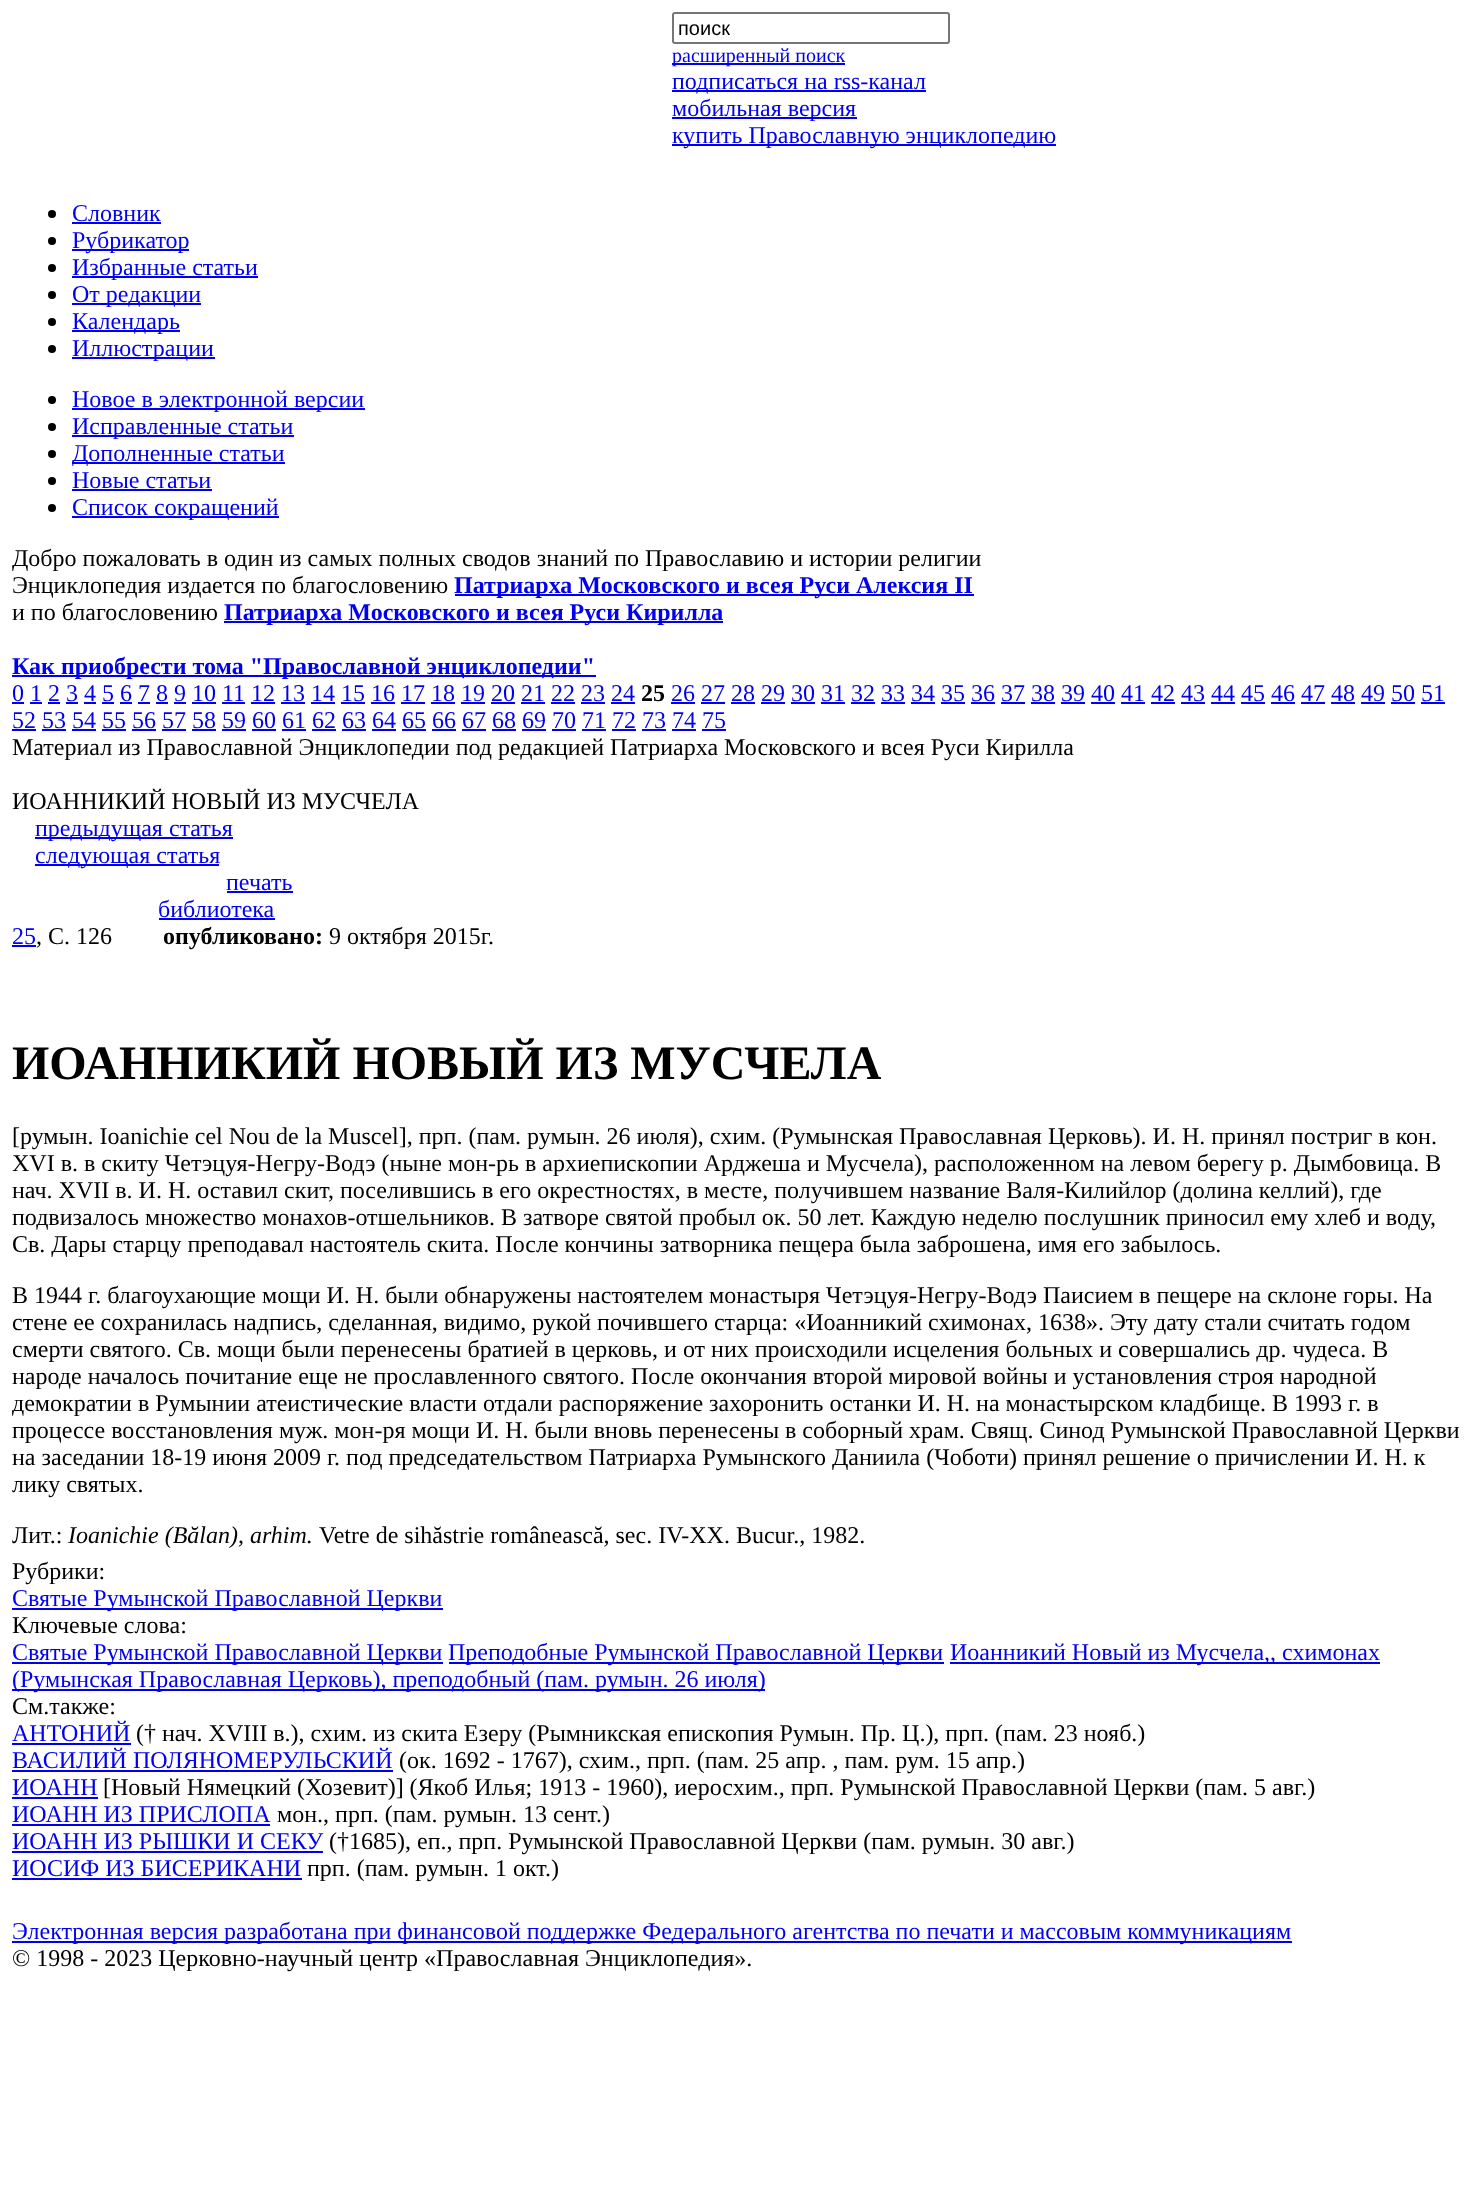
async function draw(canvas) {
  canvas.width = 1474
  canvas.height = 2188
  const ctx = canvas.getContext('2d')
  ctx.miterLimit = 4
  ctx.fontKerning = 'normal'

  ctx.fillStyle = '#fff'
  ctx.fillRect(0, 0, 1474, 2188)
  ctx.beginPath()
  ctx.roundRect(673, 13, 276, 30, 2)
  ctx.strokeStyle = '#767676'
  ctx.lineWidth = 2
  ctx.stroke()
  ctx.font = '20px Liberation Sans'
  ctx.fillStyle = '#000'
  ctx.fillText('поиск', 678, 35)
  ctx.fillStyle = '#00e'
  ctx.fillRect(672, 63, 173, 2)
  ctx.font = '20px Liberation Serif'
  ctx.fillText('расширенный поиск', 672, 62)
  ctx.fillRect(672, 90, 254, 2)
  ctx.font = '24px Liberation Serif'
  ctx.fillText('подписаться на rss-канал', 672, 89)
  ctx.fillRect(672, 117, 185, 2)
  ctx.fillText('мобильная версия', 672, 116)
  ctx.fillRect(672, 144, 384, 2)
  ctx.fillText('купить Православную энциклопедию', 672, 143)
  ctx.fillStyle = '#000'
  ctx.beginPath()
  ctx.arc(52, 214, 4, 0, 2 * Math.PI)
  ctx.fill()
  ctx.fillStyle = '#00e'
  ctx.fillText('Словник', 72, 221)
  ctx.fillRect(72, 222, 89, 2)
  ctx.fillStyle = '#000'
  ctx.beginPath()
  ctx.arc(52, 241, 4, 0, 2 * Math.PI)
  ctx.fill()
  ctx.fillStyle = '#00e'
  ctx.fillRect(72, 249, 117, 2)
  ctx.fillText('Рубрикатор', 72, 248)
  ctx.fillStyle = '#000'
  ctx.beginPath()
  ctx.arc(52, 268, 4, 0, 2 * Math.PI)
  ctx.fill()
  ctx.fillStyle = '#00e'
  ctx.fillRect(72, 276, 186, 2)
  ctx.fillText('Избранные статьи', 72, 275)
  ctx.fillStyle = '#000'
  ctx.beginPath()
  ctx.arc(52, 295, 4, 0, 2 * Math.PI)
  ctx.fill()
  ctx.fillStyle = '#00e'
  ctx.fillRect(72, 303, 129, 2)
  ctx.fillText('От редакции', 72, 302)
  ctx.fillStyle = '#000'
  ctx.beginPath()
  ctx.arc(52, 322, 4, 0, 2 * Math.PI)
  ctx.fill()
  ctx.fillStyle = '#00e'
  ctx.fillRect(72, 330, 108, 2)
  ctx.fillText('Календарь', 72, 329)
  ctx.fillStyle = '#000'
  ctx.beginPath()
  ctx.arc(52, 349, 4, 0, 2 * Math.PI)
  ctx.fill()
  ctx.fillStyle = '#00e'
  ctx.fillRect(72, 357, 143, 2)
  ctx.fillText('Иллюстрации', 72, 356)
  ctx.fillStyle = '#000'
  ctx.beginPath()
  ctx.arc(52, 400, 4, 0, 2 * Math.PI)
  ctx.fill()
  ctx.fillStyle = '#00e'
  ctx.fillRect(72, 408, 293, 2)
  ctx.fillText('Новое в электронной версии', 72, 407)
  ctx.fillStyle = '#000'
  ctx.beginPath()
  ctx.arc(52, 427, 4, 0, 2 * Math.PI)
  ctx.fill()
  ctx.fillStyle = '#00e'
  ctx.fillRect(72, 435, 222, 2)
  ctx.fillText('Исправленные статьи', 72, 434)
  ctx.fillStyle = '#000'
  ctx.beginPath()
  ctx.arc(52, 454, 4, 0, 2 * Math.PI)
  ctx.fill()
  ctx.fillStyle = '#00e'
  ctx.fillRect(72, 462, 213, 2)
  ctx.fillText('Дополненные статьи', 72, 461)
  ctx.fillStyle = '#000'
  ctx.beginPath()
  ctx.arc(52, 481, 4, 0, 2 * Math.PI)
  ctx.fill()
  ctx.fillStyle = '#00e'
  ctx.fillText('Новые статьи', 72, 488)
  ctx.fillRect(72, 489, 140, 2)
  ctx.fillStyle = '#000'
  ctx.beginPath()
  ctx.arc(52, 508, 4, 0, 2 * Math.PI)
  ctx.fill()
  ctx.fillStyle = '#00e'
  ctx.fillRect(72, 516, 207, 2)
  ctx.fillText('Список сокращений', 72, 515)
  ctx.fillStyle = '#000'
  ctx.fillText('Добро пожаловать в один из самых полных сводов знаний по Православию и истории религии', 12, 566)
  ctx.fillText('Энциклопедия издается по благословению', 12, 593)
  ctx.fillStyle = '#00e'
  ctx.fillRect(455, 594, 519, 2)
  ctx.font = 'bold 24px Liberation Serif'
  ctx.fillText('Патриарха Московского и всея Руси Алексия II', 454, 593)
  ctx.font = '24px Liberation Serif'
  ctx.fillStyle = '#000'
  ctx.fillText('и по благословению', 12, 620)
  ctx.fillStyle = '#00e'
  ctx.fillRect(224, 621, 499, 2)
  ctx.font = 'bold 24px Liberation Serif'
  ctx.fillText('Патриарха Московского и всея Руси Кирилла', 224, 620)
  ctx.fillRect(12, 675, 584, 2)
  ctx.fillText('Как приобрести тома "Православной энциклопедии"', 12, 674)
  ctx.font = '24px Liberation Serif'
  ctx.fillText('0 1 2 3 4 5 6 7 8 9 10 11 12 13 14 15 16 17 18 19 20 21 22 23 24', 12, 701)
  ctx.fillRect(12, 702, 12, 2)
  ctx.font = 'bold 24px Liberation Serif'
  ctx.fillStyle = '#000'
  ctx.fillText('25', 641, 701)
  ctx.font = '24px Liberation Serif'
  ctx.fillStyle = '#00e'
  ctx.fillText('26 27 28 29 30 31 32 33 34 35 36 37 38 39 40 41 42 43 44 45 46 47 48 49 50 51', 671, 701)
  ctx.fillRect(671, 702, 24, 2)
  ctx.fillRect(30, 702, 12, 2)
  ctx.fillRect(48, 702, 12, 2)
  ctx.fillRect(66, 702, 12, 2)
  ctx.fillRect(84, 702, 12, 2)
  ctx.fillRect(102, 702, 12, 2)
  ctx.fillRect(120, 702, 12, 2)
  ctx.fillRect(138, 702, 12, 2)
  ctx.fillRect(156, 702, 12, 2)
  ctx.fillRect(174, 702, 12, 2)
  ctx.fillRect(192, 702, 24, 2)
  ctx.fillRect(222, 702, 23, 2)
  ctx.fillRect(251, 702, 24, 2)
  ctx.fillRect(281, 702, 24, 2)
  ctx.fillRect(311, 702, 24, 2)
  ctx.fillRect(341, 702, 24, 2)
  ctx.fillRect(371, 702, 24, 2)
  ctx.fillRect(401, 702, 24, 2)
  ctx.fillRect(431, 702, 24, 2)
  ctx.fillRect(461, 702, 24, 2)
  ctx.fillRect(491, 702, 24, 2)
  ctx.fillRect(521, 702, 24, 2)
  ctx.fillRect(551, 702, 24, 2)
  ctx.fillRect(581, 702, 24, 2)
  ctx.fillRect(611, 702, 24, 2)
  ctx.fillRect(701, 702, 24, 2)
  ctx.fillRect(731, 702, 24, 2)
  ctx.fillRect(761, 702, 24, 2)
  ctx.fillRect(791, 702, 24, 2)
  ctx.fillRect(821, 702, 24, 2)
  ctx.fillRect(851, 702, 24, 2)
  ctx.fillRect(881, 702, 24, 2)
  ctx.fillRect(911, 702, 24, 2)
  ctx.fillRect(941, 702, 24, 2)
  ctx.fillRect(971, 702, 24, 2)
  ctx.fillRect(1001, 702, 24, 2)
  ctx.fillRect(1031, 702, 24, 2)
  ctx.fillRect(1061, 702, 24, 2)
  ctx.fillRect(1091, 702, 24, 2)
  ctx.fillRect(1121, 702, 24, 2)
  ctx.fillRect(1151, 702, 24, 2)
  ctx.fillRect(1181, 702, 24, 2)
  ctx.fillRect(1211, 702, 24, 2)
  ctx.fillRect(1241, 702, 24, 2)
  ctx.fillRect(1271, 702, 24, 2)
  ctx.fillRect(1301, 702, 24, 2)
  ctx.fillRect(1331, 702, 24, 2)
  ctx.fillRect(1361, 702, 24, 2)
  ctx.fillRect(1391, 702, 24, 2)
  ctx.fillRect(1421, 702, 24, 2)
  ctx.fillText('52 53 54 55 56 57 58 59 60 61 62 63 64 65 66 67 68 69 70 71 72 73 74 75', 12, 728)
  ctx.fillRect(12, 729, 24, 2)
  ctx.fillRect(42, 729, 24, 2)
  ctx.fillRect(72, 729, 24, 2)
  ctx.fillRect(102, 729, 24, 2)
  ctx.fillRect(132, 729, 24, 2)
  ctx.fillRect(162, 729, 24, 2)
  ctx.fillRect(192, 729, 24, 2)
  ctx.fillRect(222, 729, 24, 2)
  ctx.fillRect(252, 729, 24, 2)
  ctx.fillRect(282, 729, 24, 2)
  ctx.fillRect(312, 729, 24, 2)
  ctx.fillRect(342, 729, 24, 2)
  ctx.fillRect(372, 729, 24, 2)
  ctx.fillRect(402, 729, 24, 2)
  ctx.fillRect(432, 729, 24, 2)
  ctx.fillRect(462, 729, 24, 2)
  ctx.fillRect(492, 729, 24, 2)
  ctx.fillRect(522, 729, 24, 2)
  ctx.fillRect(552, 729, 24, 2)
  ctx.fillRect(582, 729, 24, 2)
  ctx.fillRect(612, 729, 24, 2)
  ctx.fillRect(642, 729, 24, 2)
  ctx.fillRect(672, 729, 24, 2)
  ctx.fillRect(702, 729, 24, 2)
  ctx.fillStyle = '#000'
  ctx.fillText('Материал из Православной Энциклопедии под редакцией Патриарха Московского и всея Руси Кирилла', 12, 755)
  ctx.fillText('ИОАННИКИЙ НОВЫЙ ИЗ МУСЧЕЛА', 12, 809)
  ctx.fillStyle = '#00e'
  ctx.fillRect(35, 837, 198, 2)
  ctx.fillText('предыдущая статья', 35, 836)
  ctx.fillRect(35, 864, 184, 2)
  ctx.fillText('следующая статья', 35, 863)
  ctx.fillText('печать', 226, 890)
  ctx.fillRect(227, 891, 66, 2)
  ctx.fillText('библиотека', 158, 917)
  ctx.fillRect(159, 918, 116, 2)
  ctx.fillText('25', 12, 944)
  ctx.fillStyle = '#000'
  ctx.fillText(', С. 126', 36, 944)
  ctx.fillStyle = '#00e'
  ctx.fillRect(12, 945, 24, 2)
  ctx.font = 'bold 24px Liberation Serif'
  ctx.fillStyle = '#000'
  ctx.fillText('опубликовано:', 163, 944)
  ctx.font = '24px Liberation Serif'
  ctx.fillText('9 октября 2015г.', 329, 944)
  ctx.font = 'bold 48px Liberation Serif'
  ctx.fillText('ИОАННИКИЙ НОВЫЙ ИЗ МУСЧЕЛА', 12, 1079)
  ctx.font = '24px Liberation Serif'
  ctx.fillText('[румын. Ioanichie cel Nou de la Muscel], прп. (пам. румын. 26 июля), схим. (Румынская Православная Церковь). И. Н. принял постриг в кон.', 12, 1144)
  ctx.fillText('XVI в. в скиту Четэцуя-Негру-Водэ (ныне мон-рь в архиепископии Арджеша и Мусчела), расположенном на левом берегу р. Дымбовица. В', 12, 1171)
  ctx.fillText('нач. XVII в. И. Н. оставил скит, поселившись в его окрестностях, в месте, получившем название Валя-Килийлор (долина келлий), где', 12, 1198)
  ctx.fillText('подвизалось множество монахов-отшельников. В затворе святой пробыл ок. 50 лет. Каждую неделю послушник приносил ему хлеб и воду,', 12, 1225)
  ctx.fillText('Св. Дары старцу преподавал настоятель скита. После кончины затворника пещера была заброшена, имя его забылось.', 12, 1252)
  ctx.fillText('В 1944 г. благоухающие мощи И. Н. были обнаружены настоятелем монастыря Четэцуя-Негру-Водэ Паисием в пещере на склоне горы. На', 12, 1303)
  ctx.fillText('стене ее сохранилась надпись, сделанная, видимо, рукой почившего старца: «Иоанникий схимонах, 1638». Эту дату стали считать годом', 12, 1330)
  ctx.fillText('смерти святого. Св. мощи были перенесены братией в церковь, и от них происходили исцеления больных и совершались др. чудеса. В', 12, 1357)
  ctx.fillText('народе началось почитание еще не прославленного святого. После окончания второй мировой войны и установления строя народной', 12, 1384)
  ctx.fillText('демократии в Румынии атеистические власти отдали распоряжение захоронить останки И. Н. на монастырском кладбище. В 1993 г. в', 12, 1411)
  ctx.fillText('процессе восстановления муж. мон-ря мощи И. Н. были вновь перенесены в соборный храм. Свящ. Синод Румынской Православной Церкви', 12, 1438)
  ctx.fillText('на заседании 18-19 июня 2009 г. под председательством Патриарха Румынского Даниила (Чоботи) принял решение о причислении И. Н. к', 12, 1465)
  ctx.fillText('лику святых.', 12, 1492)
  ctx.fillText('Лит.:', 12, 1543)
  ctx.font = 'italic 24px Liberation Serif'
  ctx.fillText('Ioanichie (Bălan), arhim.', 68, 1543)
  ctx.font = '24px Liberation Serif'
  ctx.fillText('Vetre de sihăstrie românească, sec. IV-XX. Bucur., 1982.', 319, 1543)
  ctx.fillText('Рубрики:', 12, 1579)
  ctx.fillStyle = '#00e'
  ctx.fillRect(12, 1608, 431, 2)
  ctx.fillText('Святые Румынской Православной Церкви', 12, 1606)
  ctx.fillStyle = '#000'
  ctx.fillText('Ключевые слова:', 12, 1633)
  ctx.fillStyle = '#00e'
  ctx.fillRect(12, 1662, 431, 2)
  ctx.fillText('Святые Румынской Православной Церкви', 12, 1660)
  ctx.fillRect(449, 1662, 495, 2)
  ctx.fillText('Преподобные Румынской Православной Церкви', 448, 1660)
  ctx.fillRect(950, 1662, 430, 2)
  ctx.fillText('Иоанникий Новый из Мусчела,, схимонах', 950, 1660)
  ctx.fillRect(12, 1689, 753, 2)
  ctx.fillText('(Румынская Православная Церковь), преподобный (пам. румын. 26 июля)', 12, 1687)
  ctx.fillStyle = '#000'
  ctx.fillText('См.также:', 12, 1714)
  ctx.fillStyle = '#00e'
  ctx.fillText('АНТОНИЙ', 12, 1741)
  ctx.fillRect(12, 1743, 119, 2)
  ctx.fillStyle = '#000'
  ctx.fillText('(† нач. XVIII в.), схим. из скита Езеру (Рымникская епископия Румын. Пр. Ц.), прп. (пам. 23 нояб.)', 136, 1741)
  ctx.fillStyle = '#00e'
  ctx.fillText('ВАСИЛИЙ ПОЛЯНОМЕРУЛЬСКИЙ', 12, 1768)
  ctx.fillRect(12, 1770, 381, 2)
  ctx.fillStyle = '#000'
  ctx.fillText('(ок. 1692 - 1767), схим., прп. (пам. 25 апр. , пам. рум. 15 апр.)', 399, 1768)
  ctx.fillStyle = '#00e'
  ctx.fillText('ИОАНН', 12, 1795)
  ctx.fillRect(12, 1797, 86, 2)
  ctx.fillStyle = '#000'
  ctx.fillText('[Новый Нямецкий (Хозевит)] (Якоб Илья; 1913 - 1960), иеросхим., прп. Румынской Православной Церкви (пам. 5 авг.)', 103, 1795)
  ctx.fillStyle = '#00e'
  ctx.fillText('ИОАНН ИЗ ПРИСЛОПА', 12, 1822)
  ctx.fillRect(12, 1824, 258, 2)
  ctx.fillStyle = '#000'
  ctx.fillText('мон., прп. (пам. румын. 13 сент.)', 277, 1822)
  ctx.fillStyle = '#00e'
  ctx.fillText('ИОАНН ИЗ РЫШКИ И СЕКУ', 12, 1849)
  ctx.fillRect(12, 1851, 311, 2)
  ctx.fillStyle = '#000'
  ctx.fillText('(†1685), еп., прп. Румынской Православной Церкви (пам. румын. 30 авг.)', 329, 1849)
  ctx.fillStyle = '#00e'
  ctx.fillText('ИОСИФ ИЗ БИСЕРИКАНИ', 12, 1876)
  ctx.fillRect(12, 1878, 290, 2)
  ctx.fillStyle = '#000'
  ctx.fillText('прп. (пам. румын. 1 окт.)', 307, 1876)
  ctx.fillStyle = '#00e'
  ctx.fillRect(12, 1941, 1280, 2)
  ctx.fillText('Электронная версия разработана при финансовой поддержке Федерального агентства по печати и массовым коммуникациям', 12, 1939)
  ctx.fillStyle = '#000'
  ctx.fillText('© 1998 - 2023 Церковно-научный центр «Православная Энциклопедия».', 12, 1966)
}

draw(document.querySelector('canvas'))
